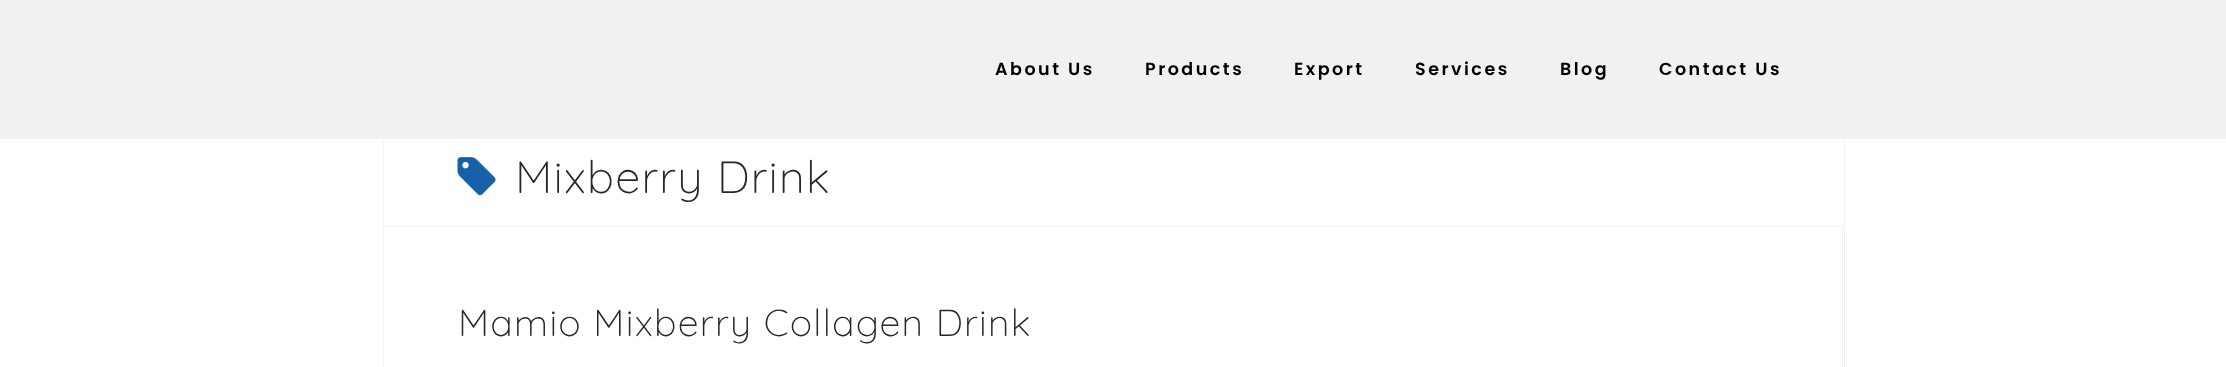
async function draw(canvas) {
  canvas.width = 2226
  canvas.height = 367
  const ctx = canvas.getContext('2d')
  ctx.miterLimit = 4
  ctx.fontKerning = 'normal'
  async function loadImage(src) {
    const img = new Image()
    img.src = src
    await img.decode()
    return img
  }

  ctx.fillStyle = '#fff'
  ctx.fillRect(0, 0, 2226, 367)
  ctx.fillStyle = '#f1f1f1'
  ctx.fillRect(0, 0, 2226, 138)
  ctx.fillStyle = '#efefef'
  ctx.fillRect(1844, 138, 1, 1)
  ctx.fillRect(383, 138, 1, 1)
  ctx.fillStyle = '#f2f2f2'
  ctx.fillRect(0, 138, 2226, 1)
  ctx.letterSpacing = '2.5px'
  ctx.font = '600 17.5px Poppins'
  ctx.fillStyle = '#000'
  ctx.fillText('About Us', 995, 75)
  ctx.fillText('Products', 1145, 75)
  ctx.fillText('Export', 1294, 75)
  ctx.fillText('Services', 1415, 75)
  ctx.fillText('Blog', 1560, 75)
  ctx.fillText('Contact Us', 1659, 75)
  ctx.fillStyle = '#f2f2f3'
  ctx.fillRect(1844, 139, 1, 228)
  ctx.fillRect(383, 139, 1, 87)
  ctx.drawImage(await loadImage('image0.png'), 457, 157, 39, 39)
  ctx.letterSpacing = '1.25px'
  ctx.font = '300 45px Quicksand'
  ctx.fillStyle = '#272727'
  ctx.fillText('Mixberry Drink', 515, 193)
  ctx.strokeStyle = '#f2f2f3'
  ctx.strokeRect(383.5, 226.5, 1459, 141)
  ctx.font = '300 37.5px Quicksand'
  ctx.fillText('Mamio Mixberry Collagen Drink', 458, 336)
}

draw(document.querySelector('canvas'))
